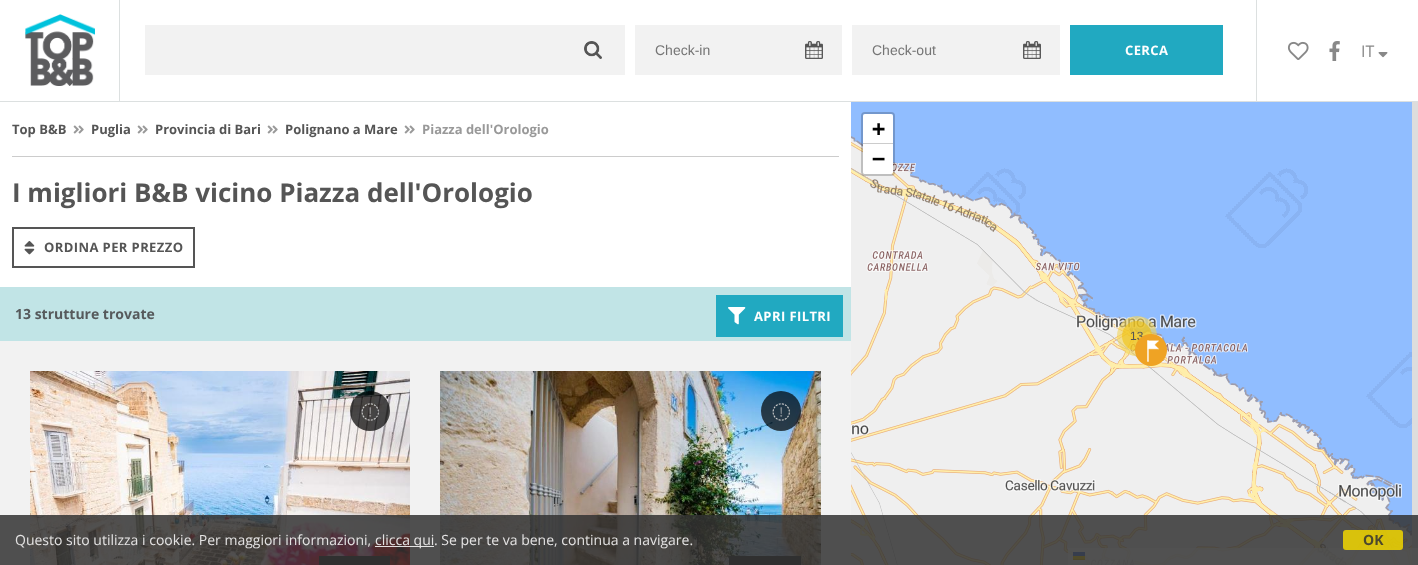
async function draw(canvas) {
  canvas.width = 1418
  canvas.height = 565
  const ctx = canvas.getContext('2d')
  ctx.miterLimit = 4
  ctx.fontKerning = 'normal'
  async function loadImage(src) {
    const img = new Image()
    img.src = src
    await img.decode()
    return img
  }

  ctx.fillStyle = '#fff'
  ctx.fillRect(0, 0, 1418, 565)
  ctx.fillStyle = '#dce0e0'
  ctx.fillRect(0, 101, 1418, 1)
  ctx.fillRect(119, 0, 1, 102)
  ctx.drawImage(await loadImage('image0.png'), 25, 14, 70, 72)
  ctx.fillStyle = '#f2f2f2'
  ctx.fillRect(145, 25, 480, 50)
  ctx.drawImage(await loadImage('image1.png'), 584, 41, 18, 18)
  ctx.fillRect(635, 25, 207, 50)
  ctx.drawImage(await loadImage('image2.png'), 805, 41, 18, 18)
  ctx.font = '14px Liberation Sans'
  ctx.fillStyle = '#757575'
  ctx.fillText('Check-in', 655, 55)
  ctx.fillStyle = '#f2f2f2'
  ctx.fillRect(852, 25, 208, 50)
  ctx.drawImage(await loadImage('image3.png'), 1023, 41, 18, 18)
  ctx.fillStyle = '#757575'
  ctx.fillText('Check-out', 872, 55)
  ctx.fillStyle = '#21a9c1'
  ctx.fillRect(1070, 25, 153, 50)
  ctx.letterSpacing = '0.4px'
  ctx.font = 'bold 13px Open Sans'
  ctx.fillStyle = '#fff'
  ctx.fillText('CERCA', 1125, 55)
  ctx.fillStyle = '#dce0e0'
  ctx.fillRect(1256, 0, 1, 102)
  ctx.drawImage(await loadImage('image4.png'), 1287, 41, 22, 19)
  ctx.drawImage(await loadImage('image5.png'), 1329, 41, 11, 20)
  ctx.letterSpacing = '0px'
  ctx.font = '16px Open Sans'
  ctx.fillStyle = '#888'
  ctx.fillText('IT', 1361, 57)
  ctx.drawImage(await loadImage('image6.png'), 1378, 52, 10, 6)
  ctx.fillStyle = '#f2f2f2'
  ctx.fillRect(0, 341, 851, 224)
  ctx.fillStyle = '#ccc'
  ctx.fillRect(12, 156, 827, 1)
  ctx.font = 'bold 13px Open Sans'
  ctx.fillStyle = '#555'
  ctx.fillText('Top B&B', 12, 134)
  ctx.drawImage(await loadImage('image7.png'), 73, 125, 11, 9)
  ctx.fillText('Puglia', 91, 134)
  ctx.drawImage(await loadImage('image7.png'), 137, 125, 11, 9)
  ctx.fillText('Provincia di Bari', 155, 134)
  ctx.drawImage(await loadImage('image7.png'), 267, 125, 11, 9)
  ctx.fillText('Polignano a Mare', 285, 134)
  ctx.drawImage(await loadImage('image7.png'), 404, 125, 11, 9)
  ctx.fillStyle = '#999'
  ctx.fillText('Piazza dell\'Orologio', 422, 134)
  ctx.font = 'bold 26px Open Sans'
  ctx.fillStyle = '#555'
  ctx.fillText('I migliori B&B vicino Piazza dell\'Orologio', 12, 202)
  ctx.strokeStyle = '#555'
  ctx.lineWidth = 2
  ctx.strokeRect(13, 228, 181, 39)
  ctx.drawImage(await loadImage('image8.png'), 24, 241, 11, 14)
  ctx.letterSpacing = '0.4px'
  ctx.font = 'bold 13px Open Sans'
  ctx.fillText('ORDINA PER PREZZO', 44, 252)
  ctx.fillStyle = '#c1e4e6'
  ctx.fillRect(0, 287, 851, 54)
  ctx.letterSpacing = '0px'
  ctx.font = 'bold 14px Open Sans'
  ctx.fillStyle = '#565a5c'
  ctx.fillText('13 strutture trovate', 15, 319)
  ctx.fillStyle = '#21a9c1'
  ctx.fillRect(716, 295, 127, 42)
  ctx.drawImage(await loadImage('image9.png'), 728, 307, 18, 18)
  ctx.letterSpacing = '0.4px'
  ctx.font = 'bold 13px Open Sans'
  ctx.fillStyle = '#fff'
  ctx.fillText('APRI FILTRI', 754, 321)
  ctx.drawImage(await loadImage('image10.png'), 30, 371, 380, 194)
  ctx.fillStyle = '#000000b3'
  ctx.beginPath()
  ctx.arc(370, 411, 20, 0, 2 * Math.PI)
  ctx.fill()
  ctx.drawImage(await loadImage('image11.png'), 361, 403, 18, 18)
  ctx.fillStyle = '#222'
  ctx.fillRect(319, 556, 71, 9)
  ctx.drawImage(await loadImage('image12.png'), 440, 371, 381, 194)
  ctx.fillStyle = '#000000b3'
  ctx.beginPath()
  ctx.arc(781, 411, 20, 0, 2 * Math.PI)
  ctx.fill()
  ctx.drawImage(await loadImage('image13.png'), 772, 403, 18, 18)
  ctx.fillStyle = '#222'
  ctx.fillRect(729, 556, 72, 9)
  ctx.fillStyle = '#ddd'
  ctx.fillRect(1412, 102, 6, 463)
  ctx.drawImage(await loadImage('image14.png'), 851, 102, 49, 38)
  ctx.drawImage(await loadImage('image15.png'), 851, 140, 49, 256)
  ctx.beginPath()
  ctx.roundRect(862, 113, 32, 62, 3)
  ctx.strokeStyle = '#00000033'
  ctx.stroke()
  ctx.fillStyle = '#fff'
  ctx.beginPath()
  ctx.roundRect(863, 114, 30, 30, [2, 2, 0, 0])
  ctx.fill()
  ctx.fillStyle = '#ccc'
  ctx.fillRect(863, 143, 30, 1)
  ctx.letterSpacing = '0px'
  ctx.font = 'bold 22px DejaVu Sans Mono'
  ctx.fillStyle = '#000'
  ctx.fillText('+', 872, 136)
  ctx.fillStyle = '#fff'
  ctx.beginPath()
  ctx.roundRect(863, 144, 30, 30, [0, 0, 2, 2])
  ctx.fill()
  ctx.fillStyle = '#000'
  ctx.fillText('−', 872, 166)
  ctx.drawImage(await loadImage('image19.png'), 900, 396, 256, 169)
  ctx.drawImage(await loadImage('image20.png'), 1156, 396, 256, 169)
  ctx.fillStyle = '#ffffffcc'
  ctx.fillRect(1068, 548, 350, 17)
  ctx.fillStyle = '#4c7be1'
  ctx.fillRect(1073, 552, 12, 4)
  ctx.fillStyle = '#ffd500'
  ctx.fillRect(1073, 556, 12, 3)
  ctx.fillStyle = '#e0bc00'
  ctx.fillRect(1073, 559, 12, 1)
  ctx.fillStyle = '#90bdff'
  ctx.fillRect(900, 102, 512, 38)
  ctx.drawImage(await loadImage('image16.png'), 900, 140, 256, 256)
  ctx.drawImage(await loadImage('image17.png'), 1156, 140, 256, 256)
  ctx.drawImage(await loadImage('image18.png'), 851, 396, 49, 169)
  ctx.fillStyle = '#f1d35799'
  ctx.beginPath()
  ctx.arc(1137, 336, 20, 0, 2 * Math.PI)
  ctx.fill()
  ctx.fillStyle = '#f0c20c99'
  ctx.beginPath()
  ctx.arc(1137, 336, 15, 0, 2 * Math.PI)
  ctx.fill()
  ctx.font = '12px Liberation Sans'
  ctx.fillStyle = '#555'
  ctx.fillText('13', 1130, 340)
  ctx.drawImage(await loadImage('image21.png'), 1135, 334, 32, 32)
  ctx.fillStyle = '#333333d9'
  ctx.fillRect(0, 515, 1418, 50)
  ctx.font = '14px Open Sans'
  ctx.fillStyle = '#e4e3e3'
  ctx.fillText('Questo sito utilizza i cookie. Per maggiori informazioni,', 15, 545)
  ctx.fillStyle = '#ffffffd9'
  ctx.fillRect(375, 546, 59, 1)
  ctx.fillStyle = '#e4e3e3'
  ctx.fillText('clicca qui', 375, 545)
  ctx.fillText('. Se per te va bene, continua a navigare.', 434, 545)
  ctx.fillStyle = '#f1d600d9'
  ctx.beginPath()
  ctx.roundRect(1343, 530, 60, 20, 3)
  ctx.fill()
  ctx.font = 'bold 14px Open Sans'
  ctx.fillStyle = '#4c482d'
  ctx.fillText('OK', 1363, 545)
}

draw(document.querySelector('canvas'))
